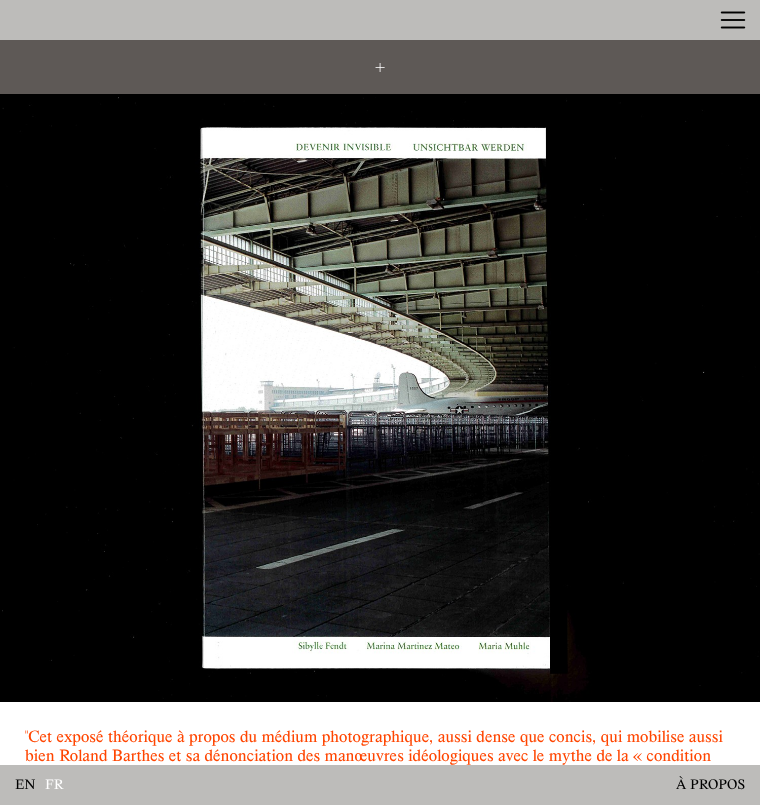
async function draw(canvas) {
  canvas.width = 760
  canvas.height = 805
  const ctx = canvas.getContext('2d')
  ctx.miterLimit = 4
  ctx.fontKerning = 'normal'
  async function loadImage(src) {
    const img = new Image()
    img.src = src
    await img.decode()
    return img
  }

  ctx.fillStyle = '#fff'
  ctx.fillRect(0, 0, 760, 805)
  ctx.fillStyle = '#bdbcba'
  ctx.fillRect(0, 0, 760, 40)
  ctx.drawImage(await loadImage('image0.png'), 720, 11, 26, 18)
  ctx.fillStyle = '#5e5956'
  ctx.fillRect(0, 40, 760, 54)
  ctx.font = '20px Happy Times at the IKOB'
  ctx.fillStyle = '#fff'
  ctx.fillText('+', 375, 74)
  ctx.fillStyle = '#000'
  ctx.fillRect(0, 94, 760, 608)
  ctx.drawImage(await loadImage('image1.png'), 2, 97, 758, 605)
  ctx.font = '17.3px Happy Times at the IKOB'
  ctx.fillStyle = '#ff4500'
  ctx.fillText('"Cet exposé théorique à propos du médium photographique, aussi dense que concis, qui mobilise aussi', 25, 742)
  ctx.fillText('bien Roland Barthes et sa dénonciation des manœuvres idéologiques avec le mythe de la « condition', 25, 761)
  ctx.fillStyle = '#bdbcba'
  ctx.fillRect(0, 765, 760, 40)
  ctx.font = '14.5px Happy Times at the IKOB'
  ctx.fillStyle = '#000'
  ctx.fillText('EN', 15, 789)
  ctx.fillStyle = '#fff'
  ctx.fillText('FR', 45, 789)
  ctx.fillStyle = '#000'
  ctx.fillText('À PROPOS', 676, 789)
}

draw(document.querySelector('canvas'))
